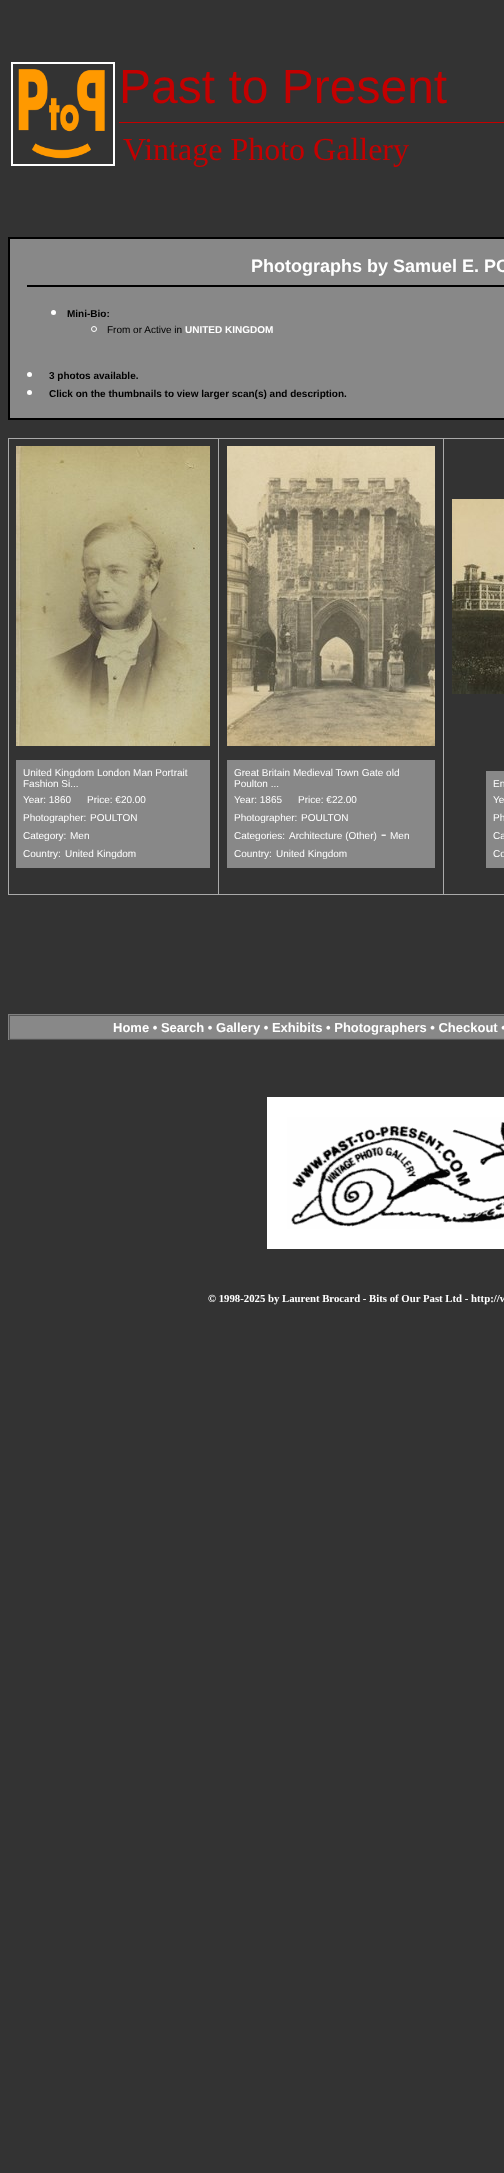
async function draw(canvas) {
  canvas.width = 504
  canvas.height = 2173
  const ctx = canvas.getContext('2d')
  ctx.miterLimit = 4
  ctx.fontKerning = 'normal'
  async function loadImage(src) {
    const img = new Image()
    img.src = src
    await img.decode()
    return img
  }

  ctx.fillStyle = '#333'
  ctx.fillRect(0, 0, 504, 2173)
  ctx.strokeStyle = '#fff'
  ctx.lineWidth = 2
  ctx.strokeRect(12, 63, 102, 102)
  ctx.drawImage(await loadImage('image0.png'), 18, 69, 87, 90)
  ctx.font = '48px Liberation Sans'
  ctx.fillStyle = '#c40000'
  ctx.fillText('Past to Present', 119, 103)
  ctx.fillRect(119, 122, 385, 1)
  ctx.font = '32px Liberation Serif'
  ctx.fillText('Vintage Photo Gallery', 123, 160)
  ctx.fillStyle = '#888'
  ctx.fillRect(10, 239, 494, 179)
  ctx.strokeStyle = '#000'
  ctx.lineWidth = 1
  ctx.strokeRect(8.5, 237.5, 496, 182)
  ctx.strokeRect(9.5, 238.5, 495, 180)
  ctx.font = 'bold 18px Liberation Sans'
  ctx.fillStyle = '#fff'
  ctx.fillText('Photographs by Samuel E. PO', 251, 272)
  ctx.fillStyle = '#000'
  ctx.fillRect(27, 285, 477, 2)
  ctx.fillStyle = '#fff'
  ctx.beginPath()
  ctx.arc(53.5, 312.5, 2.5, 0, 2 * Math.PI)
  ctx.fill()
  ctx.font = 'bold 10px Liberation Sans'
  ctx.fillStyle = '#000'
  ctx.fillText('Mini-Bio:', 67, 317)
  ctx.beginPath()
  ctx.arc(94, 329, 2.5, 0, 2 * Math.PI)
  ctx.strokeStyle = '#fff'
  ctx.stroke()
  ctx.font = '10px Liberation Sans'
  ctx.fillText('From or Active in', 107, 333)
  ctx.font = 'bold 10px Liberation Sans'
  ctx.fillStyle = '#fff'
  ctx.fillText('UNITED KINGDOM', 185, 333)
  ctx.beginPath()
  ctx.arc(29.5, 374.5, 2.5, 0, 2 * Math.PI)
  ctx.fill()
  ctx.fillStyle = '#000'
  ctx.fillText('3 photos available.', 49, 379)
  ctx.fillStyle = '#fff'
  ctx.beginPath()
  ctx.arc(29.5, 392.5, 2.5, 0, 2 * Math.PI)
  ctx.fill()
  ctx.fillStyle = '#000'
  ctx.fillText('Click on the thumbnails to view larger scan(s) and description.', 49, 397)
  ctx.fillStyle = '#aaa'
  ctx.fillRect(443, 438, 61, 1)
  ctx.fillRect(443, 894, 61, 1)
  ctx.fillRect(443, 438, 1, 457)
  ctx.fillRect(218, 438, 226, 1)
  ctx.fillRect(218, 894, 226, 1)
  ctx.fillRect(218, 438, 1, 457)
  ctx.fillRect(8, 438, 211, 1)
  ctx.fillRect(8, 894, 211, 1)
  ctx.fillRect(8, 438, 1, 457)
  ctx.drawImage(await loadImage('image1.png'), 16, 446, 194, 300)
  ctx.fillStyle = '#888'
  ctx.fillRect(16, 760, 194, 108)
  ctx.font = '10px Liberation Sans'
  ctx.fillStyle = '#fff'
  ctx.fillText('United Kingdom London Man Portrait', 23, 776)
  ctx.fillText('Fashion Si...', 23, 787)
  ctx.fillText('Year: 1860', 23, 803)
  ctx.fillText('Price: €20.00', 87, 803)
  ctx.fillText('Photographer:', 23, 821)
  ctx.fillText('POULTON', 90, 821)
  ctx.fillText('Category:', 23, 839)
  ctx.fillText('Men', 70, 839)
  ctx.fillText('Country:', 23, 857)
  ctx.fillText('United Kingdom', 65, 857)
  ctx.drawImage(await loadImage('image2.png'), 227, 446, 208, 300)
  ctx.fillStyle = '#888'
  ctx.fillRect(227, 760, 208, 108)
  ctx.fillStyle = '#fff'
  ctx.fillText('Great Britain Medieval Town Gate old', 234, 776)
  ctx.fillText('Poulton ...', 234, 787)
  ctx.fillText('Year: 1865', 234, 803)
  ctx.fillText('Price: €22.00', 298, 803)
  ctx.fillText('Photographer:', 234, 821)
  ctx.fillText('POULTON', 301, 821)
  ctx.fillText('Categories:', 234, 839)
  ctx.fillText('Architecture (Other)', 289, 839)
  ctx.font = '16px Liberation Serif'
  ctx.fillText('-', 381, 839)
  ctx.font = '10px Liberation Sans'
  ctx.fillText('Men', 390, 839)
  ctx.fillText('Country:', 234, 857)
  ctx.fillText('United Kingdom', 276, 857)
  ctx.drawImage(await loadImage('image3.png'), 452, 499, 52, 195)
  ctx.fillStyle = '#888'
  ctx.fillRect(486, 771, 18, 97)
  ctx.fillStyle = '#fff'
  ctx.fillText('En', 493, 787)
  ctx.fillText('Ye', 493, 803)
  ctx.fillText('Ph', 493, 821)
  ctx.fillText('Ca', 493, 839)
  ctx.fillText('Co', 493, 857)
  ctx.fillStyle = '#888'
  ctx.fillRect(10, 1016, 494, 22)
  ctx.fillStyle = '#808080'
  ctx.fillRect(8, 1014, 496, 1)
  ctx.fillStyle = '#555'
  ctx.fillRect(8, 1039, 496, 1)
  ctx.fillStyle = '#808080'
  ctx.fillRect(8, 1014, 1, 26)
  ctx.fillStyle = '#555'
  ctx.fillRect(9, 1015, 495, 1)
  ctx.fillStyle = '#808080'
  ctx.fillRect(9, 1038, 495, 1)
  ctx.fillStyle = '#555'
  ctx.fillRect(9, 1015, 1, 24)
  ctx.font = 'bold 13px Liberation Sans'
  ctx.fillStyle = '#fff'
  ctx.fillText('Home • Search • Gallery • Exhibits • Photographers • Checkout •', 113, 1032)
  ctx.lineWidth = 20
  ctx.strokeRect(277, 1107, 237, 132)
  ctx.drawImage(await loadImage('image4.png'), 287, 1117, 217, 112)
  ctx.font = 'bold 10.75px Liberation Serif'
  ctx.fillText('© 1998-2025 by Laurent Brocard - Bits of Our Past Ltd - http://w', 208, 1302)
}

draw(document.querySelector('canvas'))
